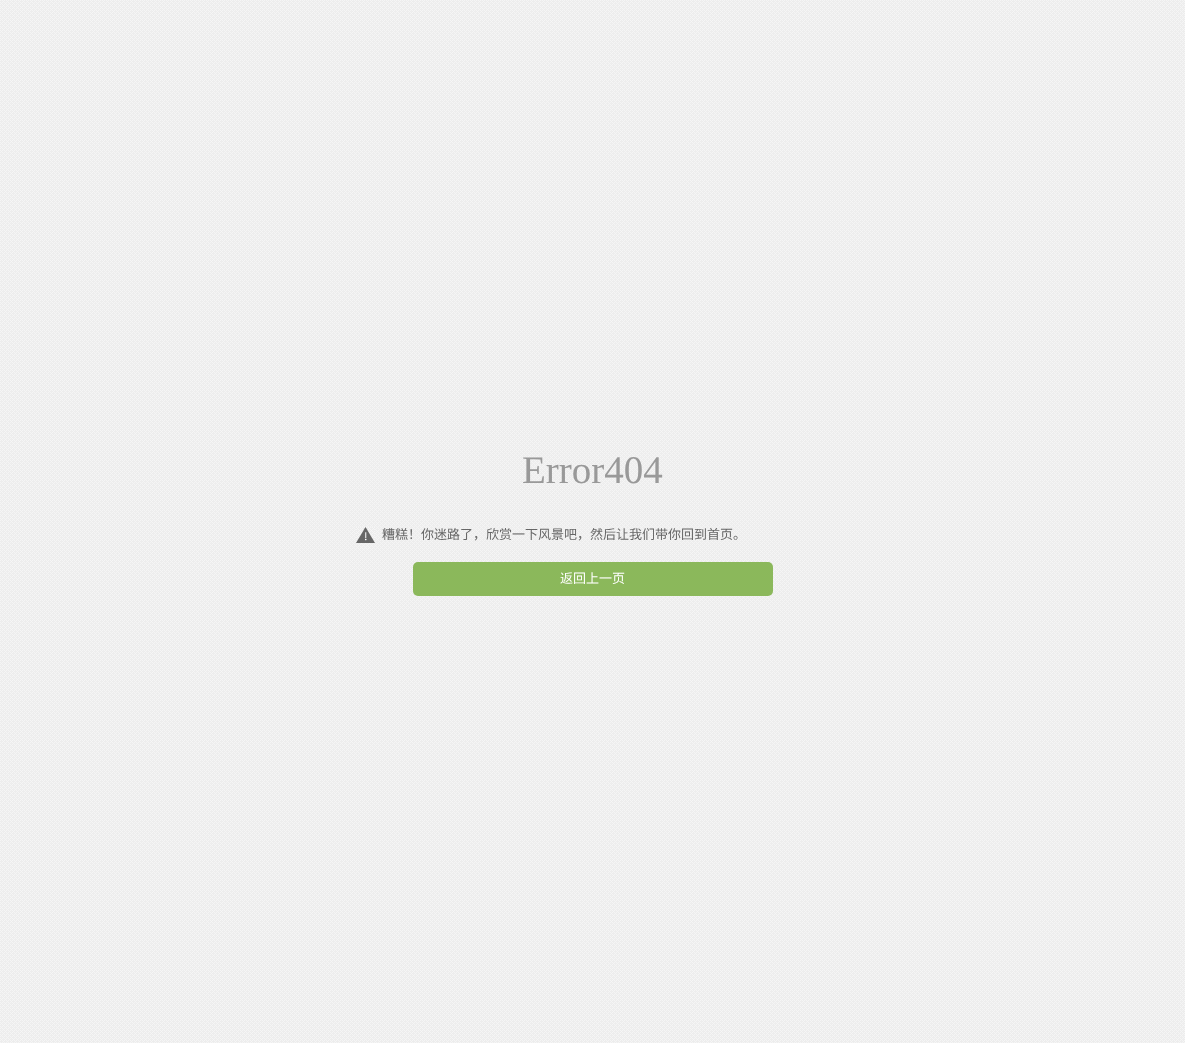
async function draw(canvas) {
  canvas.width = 1185
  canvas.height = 1043
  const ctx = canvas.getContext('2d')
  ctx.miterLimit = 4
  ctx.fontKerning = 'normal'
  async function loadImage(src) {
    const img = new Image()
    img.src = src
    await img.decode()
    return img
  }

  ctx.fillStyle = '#fff'
  ctx.fillRect(0, 0, 1185, 1043)
  ctx.drawImage(await loadImage('image0.png'), 0, 0, 1185, 1043)
  ctx.font = '39px Liberation Serif'
  ctx.fillStyle = '#999'
  ctx.fillText('Error404', 522, 483)
  ctx.drawImage(await loadImage('image1.png'), 356, 527, 19, 16)
  ctx.font = '13px Noto Sans CJK SC'
  ctx.fillStyle = '#666'
  ctx.fillText('糟糕！你迷路了，欣赏一下风景吧，然后让我们带你回到首页。', 382, 539)
  ctx.fillStyle = '#8bb85b'
  ctx.beginPath()
  ctx.roundRect(413, 562, 360, 34, 5)
  ctx.fill()
  ctx.fillStyle = '#fff'
  ctx.fillText('返回上一页', 560, 583)
}

draw(document.querySelector('canvas'))
